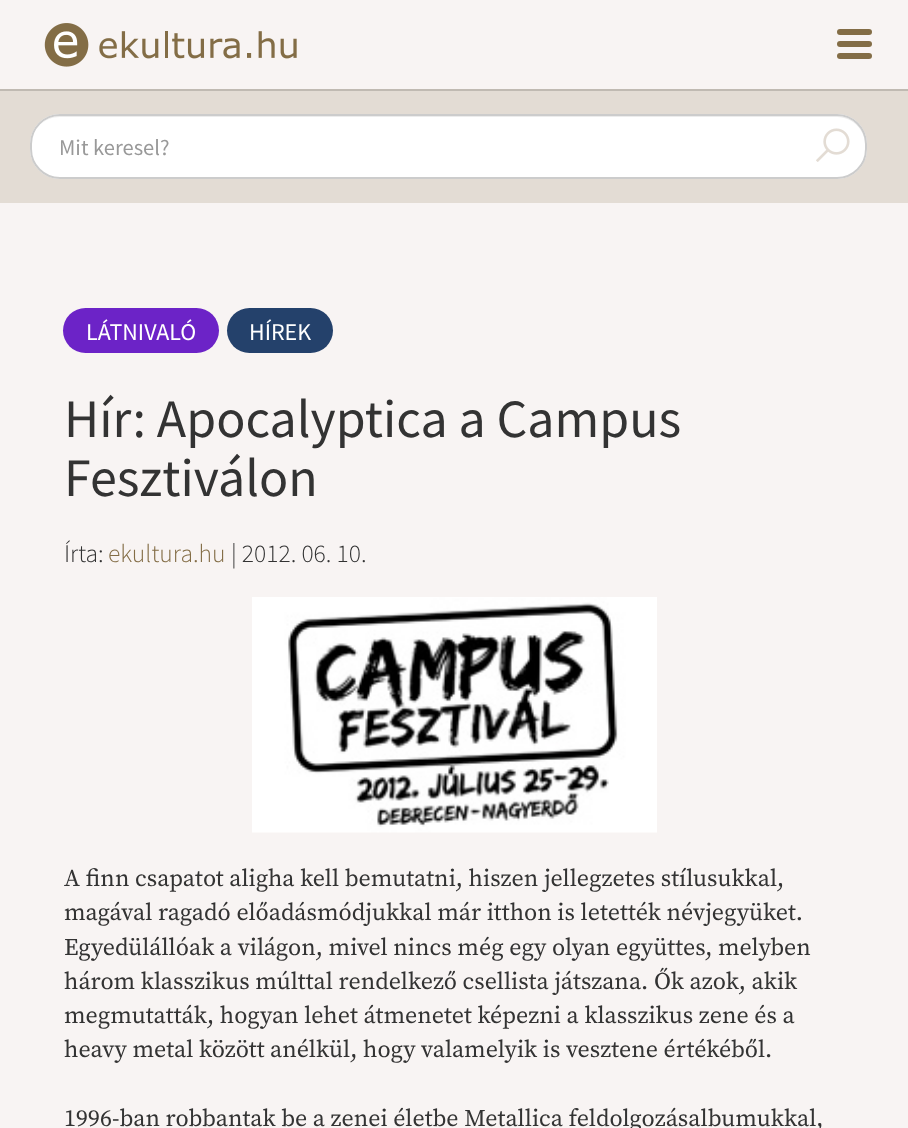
async function draw(canvas) {
  canvas.width = 908
  canvas.height = 1128
  const ctx = canvas.getContext('2d')
  ctx.miterLimit = 4
  ctx.fontKerning = 'normal'
  async function loadImage(src) {
    const img = new Image()
    img.src = src
    await img.decode()
    return img
  }

  ctx.fillStyle = '#f8f4f3'
  ctx.fillRect(0, 0, 908, 1128)
  ctx.fillStyle = '#c0bab2'
  ctx.fillRect(0, 89, 908, 2)
  ctx.drawImage(await loadImage('image0.png'), 44, 23, 253, 44)
  ctx.fillStyle = '#836d46'
  ctx.beginPath()
  ctx.roundRect(837, 29, 35, 6, 3)
  ctx.fill()
  ctx.beginPath()
  ctx.roundRect(837, 41, 35, 6, 3)
  ctx.fill()
  ctx.beginPath()
  ctx.roundRect(837, 53, 35, 6, 3)
  ctx.fill()
  ctx.fillStyle = '#e3dcd4'
  ctx.fillRect(0, 91, 908, 112)
  ctx.fillStyle = '#fff'
  ctx.beginPath()
  ctx.roundRect(30, 114, 837, 65, 30)
  ctx.fill()
  ctx.fillStyle = '#ececec'
  ctx.beginPath()
  ctx.moveTo(60, 117)
  ctx.lineTo(837, 117)
  ctx.bezierCurveTo(854, 117, 865, 131, 866, 146)
  ctx.lineTo(866, 145)
  ctx.bezierCurveTo(866, 129, 853, 116, 837, 116)
  ctx.lineTo(61, 116)
  ctx.bezierCurveTo(53, 116, 45, 119, 40, 125)
  ctx.bezierCurveTo(45, 120, 51, 117, 60, 117)
  ctx.closePath()
  ctx.moveTo(866, 151)
  ctx.lineTo(864, 158)
  ctx.closePath()
  ctx.fill('evenodd')
  ctx.beginPath()
  ctx.roundRect(31, 115, 835, 63, 29)
  ctx.strokeStyle = '#ccc'
  ctx.lineWidth = 2
  ctx.stroke()
  ctx.font = '22.5px Source Sans Pro'
  ctx.fillStyle = '#999'
  ctx.fillText('Mit keresel?', 59, 155)
  ctx.drawImage(await loadImage('image1.png'), 816, 128, 34, 34)
  ctx.fillStyle = '#6c23c7'
  ctx.beginPath()
  ctx.roundRect(63, 308, 156, 45, 22.5)
  ctx.fill()
  ctx.font = '24px Source Sans Pro'
  ctx.fillStyle = '#fff'
  ctx.fillText('LÁTNIVALÓ', 86, 340)
  ctx.fillStyle = '#24416b'
  ctx.beginPath()
  ctx.roundRect(227, 308, 106, 45, 22.5)
  ctx.fill()
  ctx.fillStyle = '#fff'
  ctx.fillText('HÍREK', 249, 340)
  ctx.font = '54px Source Sans Pro'
  ctx.fillStyle = '#333'
  ctx.fillText('Hír: Apocalyptica a Campus', 64, 437)
  ctx.fillText('Fesztiválon', 64, 496)
  ctx.font = '300 25.5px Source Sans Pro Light'
  ctx.fillText('Írta:', 64, 562)
  ctx.fillStyle = '#836d46'
  ctx.fillText('ekultura.hu', 108, 562)
  ctx.fillStyle = '#333'
  ctx.fillText('| 2012. 06. 10.', 231, 562)
  ctx.drawImage(await loadImage('image2.png'), 252, 597, 405, 236)
  ctx.font = '24px Source Serif Pro'
  ctx.fillText('A finn csapatot aligha kell bemutatni, hiszen jellegzetes stílusukkal,', 64, 886)
  ctx.fillText('magával ragadó előadásmódjukkal már itthon is letették névjegyüket.', 64, 920)
  ctx.fillText('Egyedülállóak a világon, mivel nincs még egy olyan együttes, melyben', 64, 955)
  ctx.fillText('három klasszikus múlttal rendelkező csellista játszana. Ők azok, akik', 64, 989)
  ctx.fillText('megmutatták, hogyan lehet átmenetet képezni a klasszikus zene és a', 64, 1023)
  ctx.fillText('heavy metal között anélkül, hogy valamelyik is vesztene értékéből.', 64, 1057)
  ctx.fillText('1996-ban robbantak be a zenei életbe Metallica feldolgozásalbumukkal,', 64, 1126)
}

draw(document.querySelector('canvas'))
